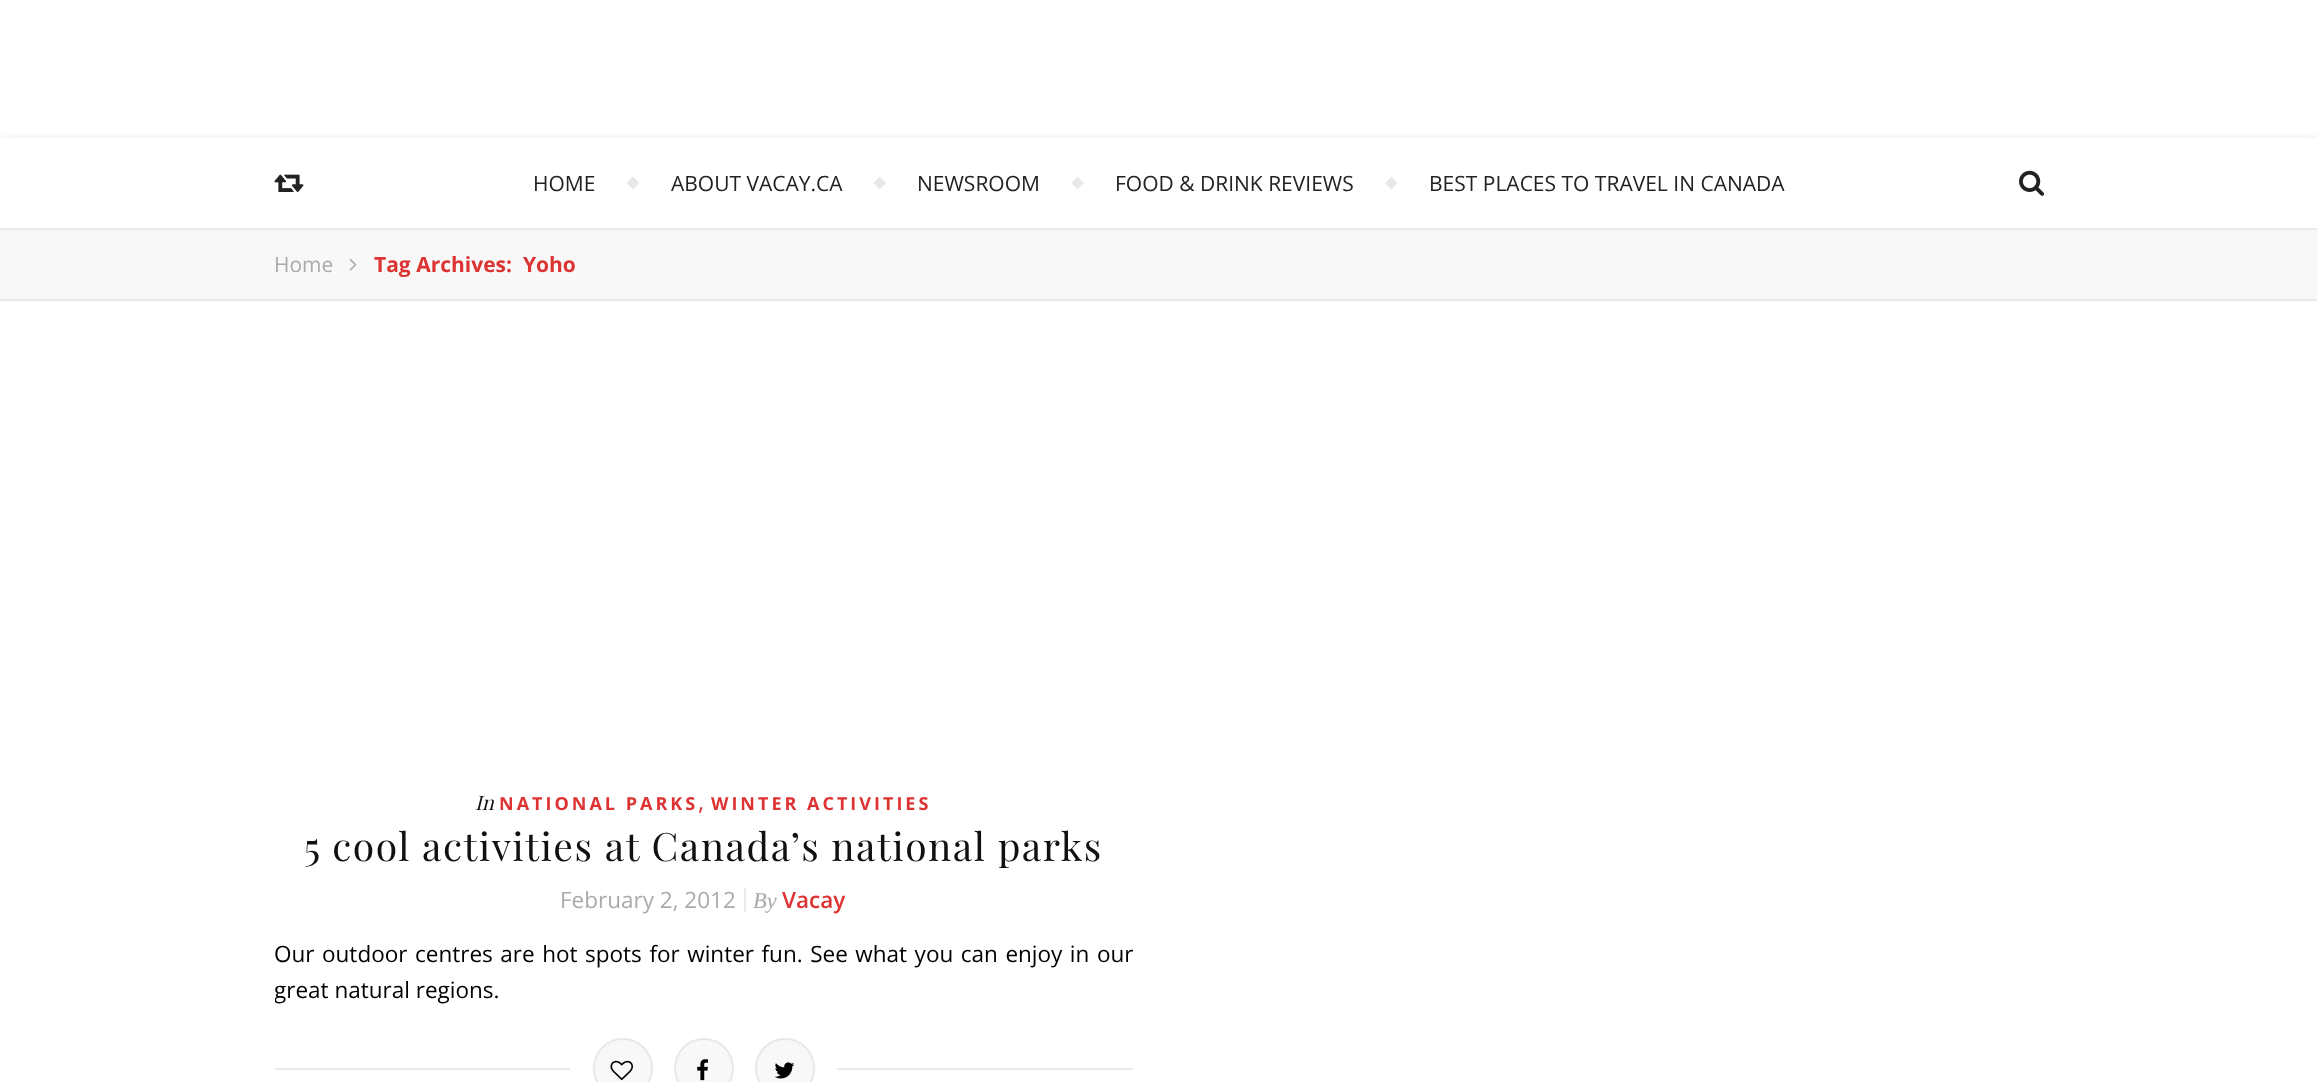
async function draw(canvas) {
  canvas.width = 2317
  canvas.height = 1082
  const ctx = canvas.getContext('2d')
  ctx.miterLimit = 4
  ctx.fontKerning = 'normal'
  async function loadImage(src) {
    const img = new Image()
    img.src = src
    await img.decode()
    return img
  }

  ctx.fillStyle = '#fff'
  ctx.fillRect(0, 0, 2317, 1082)
  ctx.save()
  ctx.beginPath()
  ctx.rect(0, 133, 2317, 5)
  ctx.clip()
  ctx.fillStyle = '#b9b9b980'
  ctx.filter = 'blur(4px)'
  ctx.beginPath()
  ctx.rect(0, 140, 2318, 90)
  ctx.fill()
  ctx.filter = 'none'
  ctx.restore()
  ctx.drawImage(await loadImage('image0.png'), 274, 174, 30, 18)
  ctx.font = '21px Open Sans'
  ctx.fillStyle = '#222'
  ctx.fillText('HOME', 533, 191)
  ctx.fillStyle = '#e8e8e8'
  ctx.beginPath()
  ctx.moveTo(626.5, 183)
  ctx.lineTo(633, 176.5)
  ctx.lineTo(639.5, 183)
  ctx.lineTo(633, 189.5)
  ctx.closePath()
  ctx.fill()
  ctx.fillStyle = '#222'
  ctx.fillText('ABOUT VACAY.CA', 671, 191)
  ctx.fillStyle = '#e8e8e8'
  ctx.beginPath()
  ctx.moveTo(873.5, 183)
  ctx.lineTo(879.5, 176.5)
  ctx.lineTo(886, 183)
  ctx.lineTo(879.5, 189.5)
  ctx.closePath()
  ctx.fill()
  ctx.fillStyle = '#222'
  ctx.fillText('NEWSROOM', 917, 191)
  ctx.fillStyle = '#e8e8e8'
  ctx.beginPath()
  ctx.moveTo(1071, 183)
  ctx.lineTo(1077.5, 176.5)
  ctx.lineTo(1084, 183)
  ctx.lineTo(1077.5, 189.5)
  ctx.closePath()
  ctx.fill()
  ctx.fillStyle = '#222'
  ctx.fillText('FOOD & DRINK REVIEWS', 1115, 191)
  ctx.fillStyle = '#e8e8e8'
  ctx.beginPath()
  ctx.moveTo(1385, 183)
  ctx.lineTo(1391.5, 176.5)
  ctx.lineTo(1397.5, 183)
  ctx.lineTo(1391.5, 189.5)
  ctx.closePath()
  ctx.fill()
  ctx.fillStyle = '#222'
  ctx.fillText('BEST PLACES TO TRAVEL IN CANADA', 1429, 191)
  ctx.drawImage(await loadImage('image1.png'), 2019, 170, 25, 26)
  ctx.fillStyle = '#f8f8f8'
  ctx.fillRect(0, 230, 2317, 69)
  ctx.fillStyle = '#e8e8e8'
  ctx.fillRect(0, 228, 2317, 2)
  ctx.fillRect(0, 299, 2317, 2)
  ctx.fillStyle = '#aaa'
  ctx.fillText('Home', 274, 272)
  ctx.drawImage(await loadImage('image2.png'), 349, 259, 8, 12)
  ctx.font = 'bold 21px Open Sans'
  ctx.fillStyle = '#d33'
  ctx.fillText('Tag Archives:  Yoho', 374, 272)
  ctx.font = 'italic 20px Playfair Display'
  ctx.fillStyle = '#111'
  ctx.fillText('In', 475, 810)
  ctx.letterSpacing = '3px'
  ctx.font = 'bold 18px Open Sans'
  ctx.fillStyle = '#d33'
  ctx.fillText('NATIONAL PARKS', 499, 810)
  ctx.letterSpacing = '0px'
  ctx.font = '24px Open Sans'
  ctx.fillText(',', 698, 810)
  ctx.letterSpacing = '3px'
  ctx.font = 'bold 18px Open Sans'
  ctx.fillText('WINTER ACTIVITIES', 711, 810)
  ctx.letterSpacing = '1.5px'
  ctx.font = '39px Playfair Display'
  ctx.fillStyle = '#111'
  ctx.fillText('5 cool activities at Canada’s national parks', 304, 861)
  ctx.letterSpacing = '0px'
  ctx.font = '22.5px Open Sans'
  ctx.fillStyle = '#aaa'
  ctx.fillText('February 2, 2012', 560, 908)
  ctx.font = 'italic 22.5px Liberation Serif'
  ctx.fillText('By', 753, 908)
  ctx.fillStyle = '#e8e8e8'
  ctx.fillRect(744, 888, 2, 24)
  ctx.font = '600 22.5px Open Sans'
  ctx.fillStyle = '#d33'
  ctx.fillText('Vacay', 782, 908)
  ctx.wordSpacing = '1.7px'
  ctx.font = '22.5px Open Sans'
  ctx.fillStyle = '#000'
  ctx.fillText('Our outdoor centres are hot spots for winter fun. See what you can enjoy in our', 274, 962)
  ctx.save()
  ctx.beginPath()
  ctx.rect(275, 935, 858, 103)
  ctx.clip()
  ctx.wordSpacing = '0px'
  ctx.fillText('great natural regions.', 274, 998)
  ctx.restore()
  ctx.fillStyle = '#e8e8e8'
  ctx.fillRect(275, 1068, 295, 2)
  ctx.fillStyle = '#f8f8f8'
  ctx.beginPath()
  ctx.arc(623, 1068, 29, 0, 2 * Math.PI)
  ctx.fill()
  ctx.strokeStyle = '#e8e8e8'
  ctx.lineWidth = 2
  ctx.stroke()
  ctx.drawImage(await loadImage('image3.png'), 610, 1060, 23, 21)
  ctx.beginPath()
  ctx.arc(704, 1068, 29, 0, 2 * Math.PI)
  ctx.fill()
  ctx.stroke()
  ctx.drawImage(await loadImage('image4.png'), 697, 1059, 12, 22)
  ctx.beginPath()
  ctx.arc(785, 1068, 29, 0, 2 * Math.PI)
  ctx.fill()
  ctx.stroke()
  ctx.drawImage(await loadImage('image5.png'), 774, 1062, 21, 17)
  ctx.fillStyle = '#e8e8e8'
  ctx.fillRect(837, 1068, 296, 2)
}

draw(document.querySelector('canvas'))
